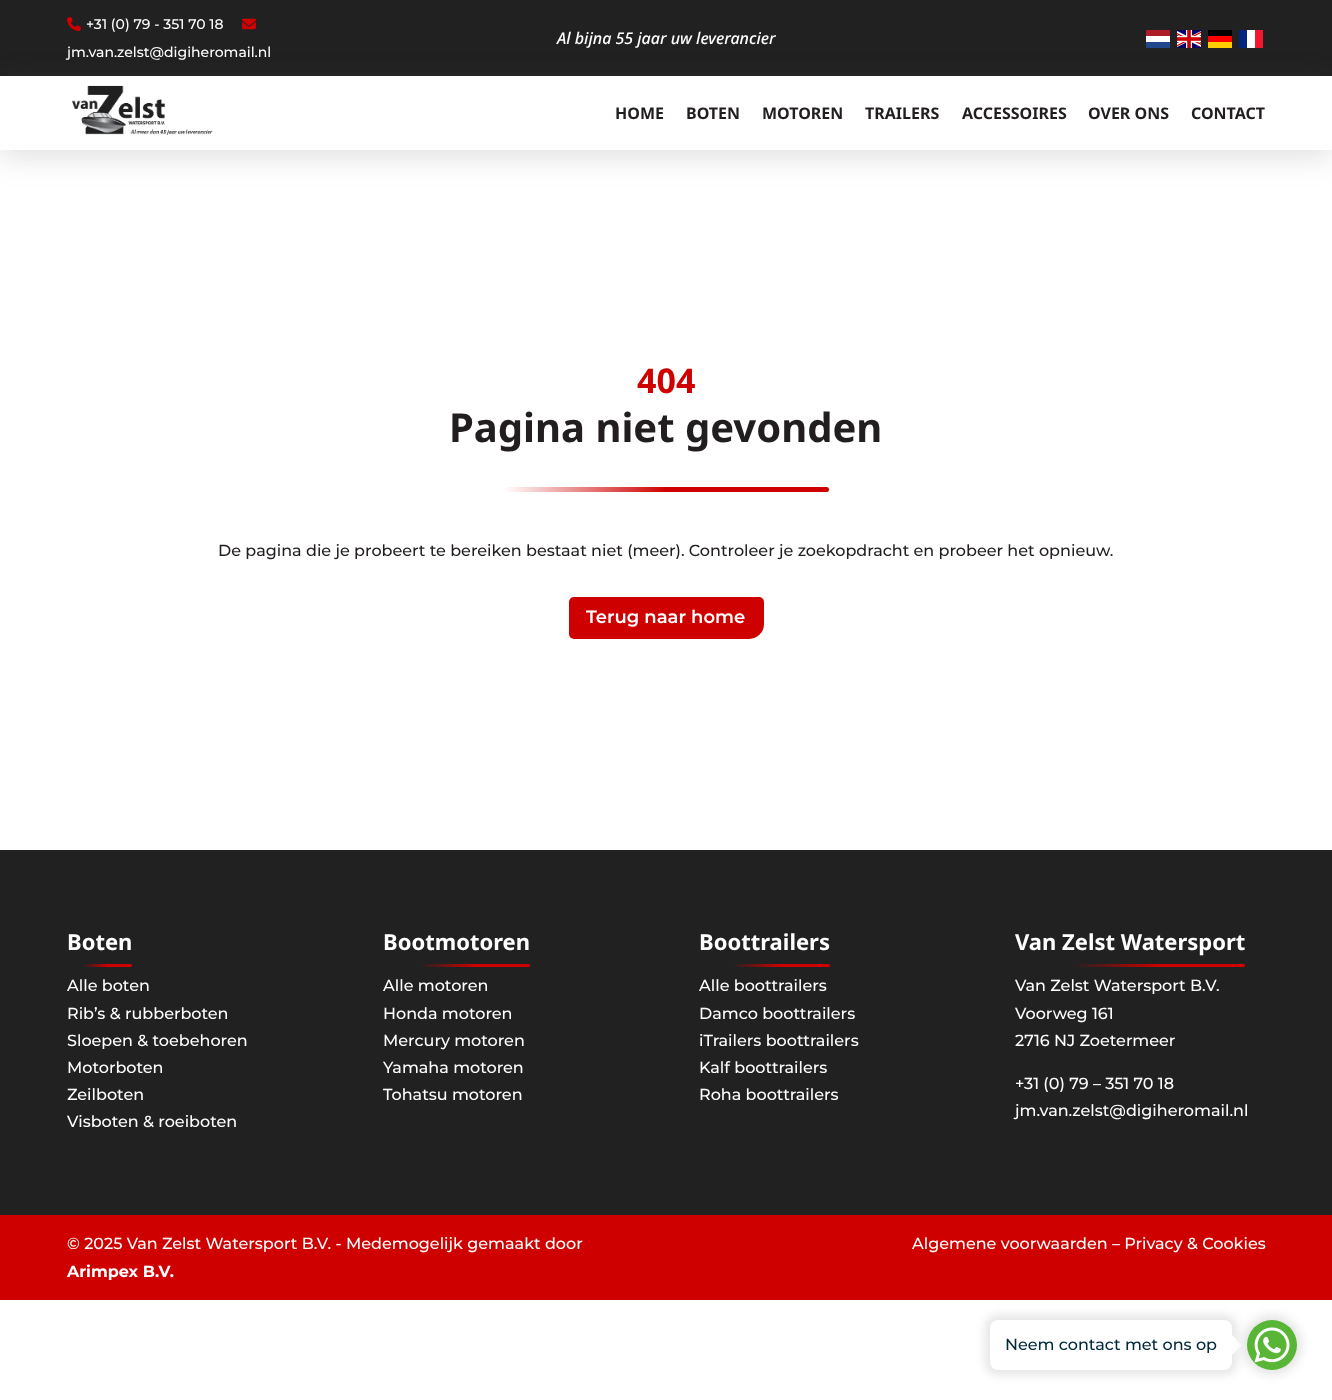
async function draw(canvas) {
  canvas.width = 1332
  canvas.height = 1400
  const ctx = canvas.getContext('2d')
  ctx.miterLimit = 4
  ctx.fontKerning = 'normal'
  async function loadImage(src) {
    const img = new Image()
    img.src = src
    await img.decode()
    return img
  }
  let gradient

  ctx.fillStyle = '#fff'
  ctx.fillRect(0, 0, 1332, 1400)
  ctx.fillStyle = '#212121'
  ctx.fillRect(0, 0, 1332, 76)
  ctx.drawImage(await loadImage('image0.png'), 67, 17, 14, 14)
  ctx.font = '500 14px Montserrat'
  ctx.fillStyle = '#fff'
  ctx.fillText('+31 (0) 79 - 351 70 18', 86, 29)
  ctx.drawImage(await loadImage('image1.png'), 242, 18, 14, 12)
  ctx.save()
  ctx.beginPath()
  ctx.moveTo(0, 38)
  ctx.lineTo(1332, 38)
  ctx.lineTo(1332, 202)
  ctx.lineTo(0, 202)
  ctx.closePath()
  ctx.moveTo(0, 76)
  ctx.lineTo(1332, 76)
  ctx.lineTo(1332, 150)
  ctx.lineTo(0, 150)
  ctx.closePath()
  ctx.clip('evenodd')
  ctx.fillStyle = '#64646f33'
  ctx.filter = 'blur(14.5px)'
  ctx.beginPath()
  ctx.rect(0, 83, 1332, 74)
  ctx.fill()
  ctx.filter = 'none'
  ctx.restore()
  ctx.fillText('jm.van.zelst@digiheromail.nl', 67, 57)
  ctx.font = 'italic 500 16px Noto Sans'
  ctx.fillText('Al bijna 55 jaar uw leverancier', 557, 44)
  ctx.fillStyle = '#ae1c28'
  ctx.fillRect(1146, 30, 24, 6)
  ctx.drawImage(await loadImage('image2.png'), 1177, 30, 24, 18)
  ctx.fillStyle = '#000'
  ctx.fillRect(1208, 30, 24, 6)
  ctx.fillStyle = '#00267f'
  ctx.fillRect(1239, 30, 8, 18)
  ctx.fillStyle = '#fff'
  ctx.fillRect(1247, 30, 8, 18)
  ctx.fillStyle = '#f31830'
  ctx.fillRect(1255, 30, 8, 18)
  ctx.fillStyle = '#fff'
  ctx.fillRect(1146, 36, 24, 6)
  ctx.fillStyle = '#f00'
  ctx.fillRect(1208, 36, 24, 6)
  ctx.fillStyle = '#21468b'
  ctx.fillRect(1146, 42, 24, 6)
  ctx.fillStyle = '#fc0'
  ctx.fillRect(1208, 42, 24, 6)
  ctx.drawImage(await loadImage('image3.png'), 72, 85, 141, 50)
  ctx.font = 'bold 16px Noto Sans'
  ctx.fillStyle = '#221e20'
  ctx.fillText('HOME', 615, 119)
  ctx.fillText('BOTEN', 686, 119)
  ctx.fillText('MOTOREN', 762, 119)
  ctx.fillText('TRAILERS', 865, 119)
  ctx.fillText('ACCESSOIRES', 962, 119)
  ctx.fillText('OVER ONS', 1088, 119)
  ctx.fillText('CONTACT', 1191, 119)
  ctx.font = 'bold 34px Noto Sans'
  ctx.fillStyle = '#cf0000'
  ctx.fillText('404', 637, 393)
  ctx.font = 'bold 40px Noto Sans'
  ctx.fillStyle = '#221e20'
  ctx.fillText('Pagina niet gevonden', 449, 442)
  gradient = ctx.createLinearGradient(504, 489, 829, 489)
  gradient.addColorStop(0, '#fff')
  gradient.addColorStop(0.5, '#cf0000')
  gradient.addColorStop(1, '#cf0000')
  ctx.fillStyle = gradient
  ctx.beginPath()
  ctx.roundRect(504, 487, 325, 5, 2.5)
  ctx.fill()
  ctx.font = '500 16px Montserrat'
  ctx.fillStyle = '#221e20'
  ctx.fillText('De pagina die je probeert te bereiken bestaat niet (meer). Controleer je zoekopdracht en probeer het opnieuw.', 218, 556)
  ctx.fillStyle = '#cf0000'
  ctx.beginPath()
  ctx.roundRect(569, 597, 195, 42, [5, 5, 15, 5])
  ctx.fill()
  ctx.font = '600 18px Montserrat'
  ctx.fillStyle = '#fff'
  ctx.fillText('Terug naar home', 586, 623)
  ctx.fillStyle = '#212121'
  ctx.fillRect(0, 850, 1332, 365)
  ctx.font = 'bold 22px Noto Sans'
  ctx.fillStyle = '#fff'
  ctx.fillText('Boten', 67, 950)
  gradient = ctx.createLinearGradient(83, 966, 132, 966)
  gradient.addColorStop(0, '#212121')
  gradient.addColorStop(0.5, '#cf0000')
  gradient.addColorStop(1, '#cf0000')
  ctx.fillStyle = gradient
  ctx.beginPath()
  ctx.roundRect(83, 964, 49, 3, 1.5)
  ctx.fill()
  ctx.font = '500 16px Montserrat'
  ctx.fillStyle = '#fff'
  ctx.fillText('Alle boten', 67, 991)
  ctx.fillText('Rib’s & rubberboten', 67, 1019)
  ctx.fillText('Sloepen & toebehoren', 67, 1046)
  ctx.fillText('Motorboten', 67, 1073)
  ctx.fillText('Zeilboten', 67, 1100)
  ctx.fillText('Visboten & roeiboten', 67, 1127)
  ctx.font = 'bold 22px Noto Sans'
  ctx.fillText('Bootmotoren', 383, 950)
  gradient = ctx.createLinearGradient(420, 966, 530, 966)
  gradient.addColorStop(0, '#212121')
  gradient.addColorStop(0.5, '#cf0000')
  gradient.addColorStop(1, '#cf0000')
  ctx.fillStyle = gradient
  ctx.beginPath()
  ctx.roundRect(420, 964, 110, 3, 1.5)
  ctx.fill()
  ctx.font = '500 16px Montserrat'
  ctx.fillStyle = '#fff'
  ctx.fillText('Alle motoren', 383, 991)
  ctx.fillText('Honda motoren', 383, 1019)
  ctx.fillText('Mercury motoren', 383, 1046)
  ctx.fillText('Yamaha motoren', 383, 1073)
  ctx.fillText('Tohatsu motoren', 383, 1100)
  ctx.font = 'bold 22px Noto Sans'
  ctx.fillText('Boottrailers', 699, 950)
  gradient = ctx.createLinearGradient(732, 966, 830, 966)
  gradient.addColorStop(0, '#212121')
  gradient.addColorStop(0.5, '#cf0000')
  gradient.addColorStop(1, '#cf0000')
  ctx.fillStyle = gradient
  ctx.beginPath()
  ctx.roundRect(732, 964, 98, 3, 1.5)
  ctx.fill()
  ctx.font = '500 16px Montserrat'
  ctx.fillStyle = '#fff'
  ctx.fillText('Alle boottrailers', 699, 991)
  ctx.fillText('Damco boottrailers', 699, 1019)
  ctx.fillText('iTrailers boottrailers', 699, 1046)
  ctx.fillText('Kalf boottrailers', 699, 1073)
  ctx.fillText('Roha boottrailers', 699, 1100)
  ctx.font = 'bold 22px Noto Sans'
  ctx.fillText('Van Zelst Watersport', 1015, 950)
  gradient = ctx.createLinearGradient(1073, 966, 1245, 966)
  gradient.addColorStop(0, '#212121')
  gradient.addColorStop(0.5, '#cf0000')
  gradient.addColorStop(1, '#cf0000')
  ctx.fillStyle = gradient
  ctx.beginPath()
  ctx.roundRect(1073, 964, 172, 3, 1.5)
  ctx.fill()
  ctx.font = '500 16px Montserrat'
  ctx.fillStyle = '#fff'
  ctx.fillText('Van Zelst Watersport B.V.', 1015, 991)
  ctx.fillText('Voorweg 161', 1015, 1019)
  ctx.fillText('2716 NJ Zoetermeer', 1015, 1046)
  ctx.fillText('+31 (0) 79 – 351 70 18', 1015, 1089)
  ctx.fillText('jm.van.zelst@digiheromail.nl', 1015, 1116)
  ctx.fillStyle = '#cf0000'
  ctx.fillRect(0, 1215, 1332, 85)
  ctx.fillStyle = '#fff'
  ctx.fillText('© 2025 Van Zelst Watersport B.V. - Medemogelijk gemaakt door', 67, 1249)
  ctx.font = 'bold 16px Montserrat'
  ctx.fillText('Arimpex B.V.', 67, 1277)
  ctx.font = '500 16px Montserrat'
  ctx.fillText('Algemene voorwaarden – Privacy & Cookies', 912, 1249)
  ctx.fillStyle = '#0000001a'
  ctx.filter = 'blur(5px)'
  ctx.beginPath()
  ctx.roundRect(985, 1315, 252, 60, 13)
  ctx.fill()
  ctx.filter = 'none'
  ctx.fillStyle = '#fff'
  ctx.beginPath()
  ctx.roundRect(990, 1320, 242, 50, 8)
  ctx.fill()
  ctx.fillStyle = '#002839'
  ctx.fillText('Neem contact met ons op', 1005, 1350)
  ctx.fillStyle = '#fff'
  ctx.beginPath()
  ctx.moveTo(1232, 1355)
  ctx.lineTo(1232, 1335)
  ctx.lineTo(1242, 1345)
  ctx.closePath()
  ctx.fill()
  ctx.fillStyle = '#0000001a'
  ctx.filter = 'blur(5px)'
  ctx.beginPath()
  ctx.roundRect(1242, 1315, 60, 60, 30)
  ctx.fill()
  ctx.filter = 'none'
  ctx.fillStyle = '#58b535'
  ctx.beginPath()
  ctx.arc(1272, 1345, 25, 0, 2 * Math.PI)
  ctx.fill()
  ctx.drawImage(await loadImage('image4.png'), 1254, 1327, 36, 36)
}

draw(document.querySelector('canvas'))
